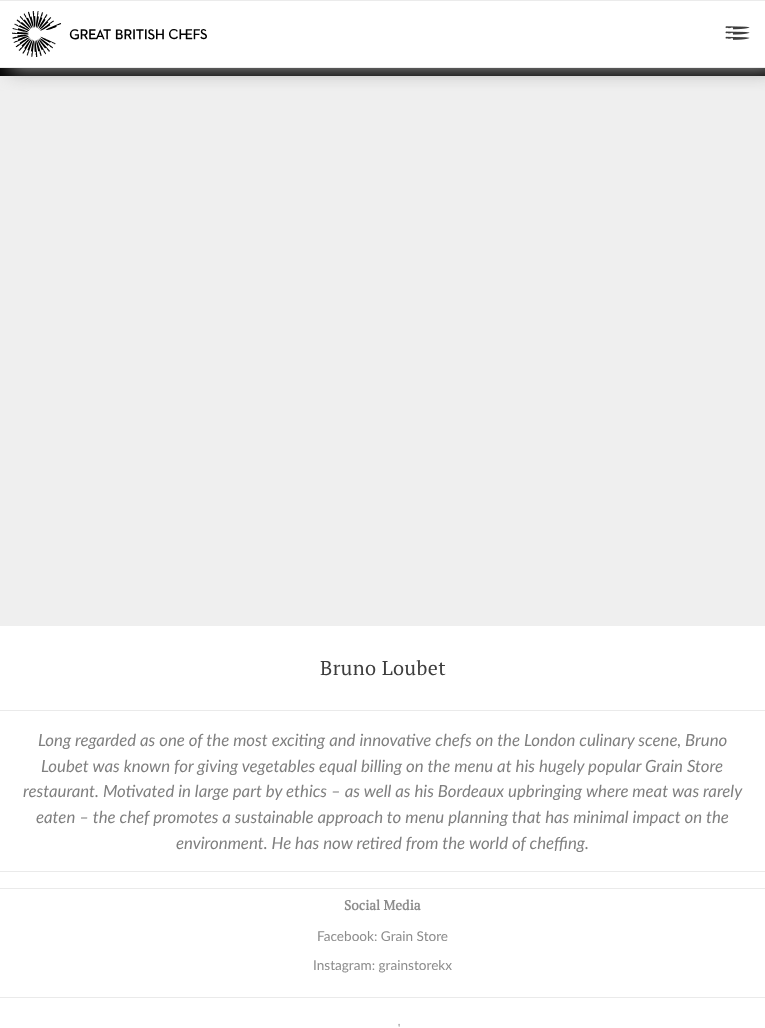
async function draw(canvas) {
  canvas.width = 765
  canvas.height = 1028
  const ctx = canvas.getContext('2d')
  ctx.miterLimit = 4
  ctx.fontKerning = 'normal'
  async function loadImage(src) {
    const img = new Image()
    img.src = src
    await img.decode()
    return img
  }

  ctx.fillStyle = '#fff'
  ctx.fillRect(0, 0, 765, 1028)
  ctx.fillStyle = '#000'
  ctx.fillRect(0, 68, 765, 8)
  ctx.fillStyle = '#efefef'
  ctx.fillRect(0, 76, 765, 550)
  ctx.save()
  ctx.beginPath()
  ctx.rect(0, 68, 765, 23)
  ctx.clip()
  ctx.fillStyle = '#999'
  ctx.filter = 'blur(10px)'
  ctx.beginPath()
  ctx.rect(10, 2, 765, 68)
  ctx.fill()
  ctx.filter = 'none'
  ctx.restore()
  ctx.fillStyle = '#ebebeb'
  ctx.fillRect(0, 67, 765, 1)
  ctx.fillRect(0, 0, 765, 1)
  ctx.drawImage(await loadImage('image0.png'), 12, 11, 195, 46)
  ctx.drawImage(await loadImage('image1.png'), 725, 26, 25, 14)
  ctx.letterSpacing = '0.4px'
  ctx.font = '20px PT Serif'
  ctx.fillStyle = '#3e3e3e'
  ctx.fillText('Bruno Loubet', 320, 675)
  ctx.fillStyle = '#eaeaea'
  ctx.fillRect(0, 710, 765, 1)
  ctx.letterSpacing = '0px'
  ctx.font = 'italic 16.8px Lato'
  ctx.fillStyle = '#7f7f7f'
  ctx.fillText('Long regarded as one of the most exciting and innovative chefs on the London culinary scene, Bruno', 38, 746)
  ctx.fillText('Loubet was known for giving vegetables equal billing on the menu at his hugely popular Grain Store', 41, 772)
  ctx.fillText('restaurant. Motivated in large part by ethics – as well as his Bordeaux upbringing where meat was rarely', 23, 797)
  ctx.fillText('eaten – the chef promotes a sustainable approach to menu planning that has minimal impact on the', 36, 823)
  ctx.fillText('environment. He has now retired from the world of cheffing.', 176, 849)
  ctx.fillStyle = '#eaeaea'
  ctx.fillRect(0, 871, 765, 1)
  ctx.fillRect(0, 888, 765, 1)
  ctx.font = 'bold 13.6px PT Serif'
  ctx.fillStyle = '#8c8c8c'
  ctx.fillText('Social Media', 344, 910)
  ctx.font = '13.6px Lato'
  ctx.fillText('Facebook: Grain Store', 317, 941)
  ctx.fillText('Instagram: grainstorekx', 313, 970)
  ctx.fillStyle = '#eaeaea'
  ctx.fillRect(0, 997, 765, 1)
  ctx.font = '16px PT Serif'
  ctx.fillStyle = '#949494'
  ctx.fillText('\'', 397, 1035)
}

draw(document.querySelector('canvas'))
